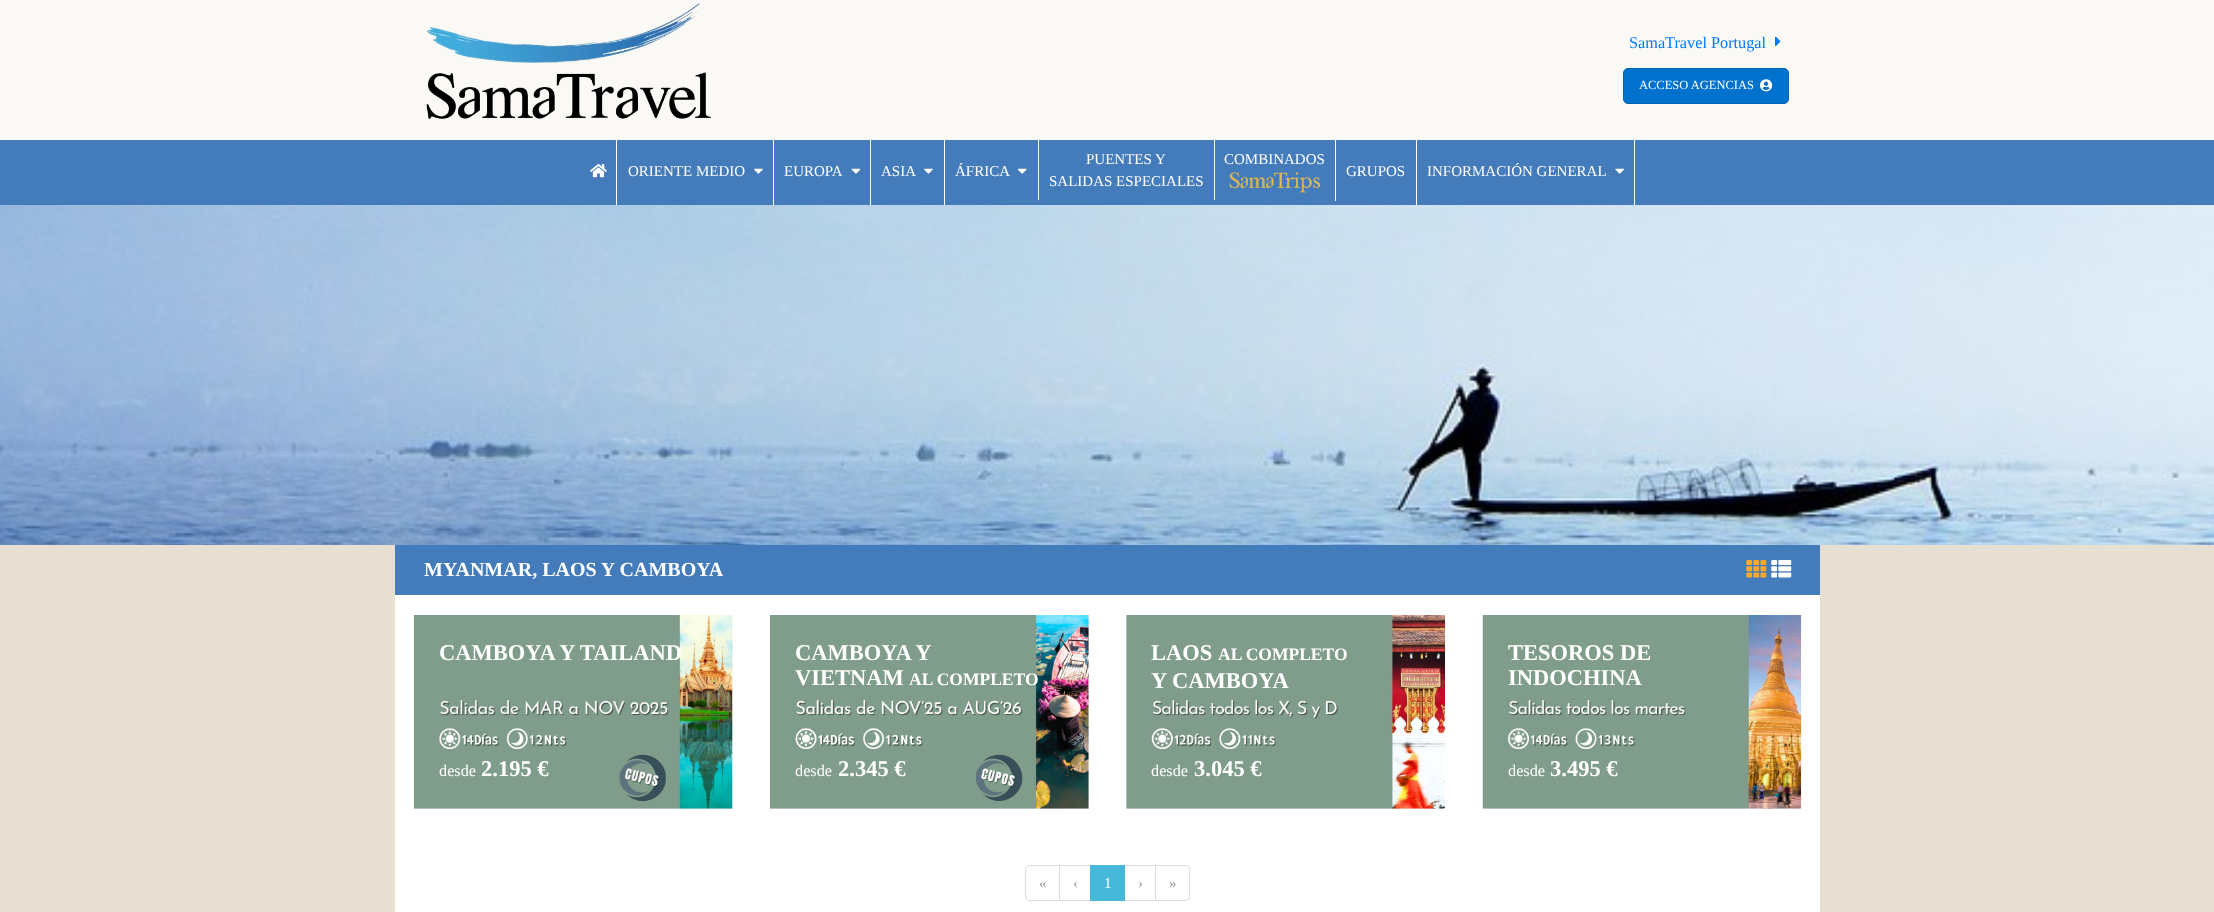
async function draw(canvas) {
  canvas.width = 2214
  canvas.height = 912
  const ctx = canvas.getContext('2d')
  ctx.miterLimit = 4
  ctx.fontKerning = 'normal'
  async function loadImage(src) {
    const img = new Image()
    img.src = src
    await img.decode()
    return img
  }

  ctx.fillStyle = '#e6dfd2'
  ctx.fillRect(0, 0, 2214, 912)
  ctx.fillStyle = '#faf9f6'
  ctx.fillRect(0, 0, 2214, 140)
  ctx.drawImage(await loadImage('image0.png'), 426, 3, 285, 116)
  ctx.font = '16.25px Liberation Serif'
  ctx.fillStyle = '#007bff'
  ctx.fillText('SamaTravel Portugal', 1629, 48)
  ctx.drawImage(await loadImage('image1.png'), 1775, 36, 6, 11)
  ctx.fillStyle = '#0072ce'
  ctx.beginPath()
  ctx.roundRect(1623.5, 68.5, 165, 35, 4.5)
  ctx.fill()
  ctx.strokeStyle = '#0062b3'
  ctx.stroke()
  ctx.font = '12.5px Liberation Serif'
  ctx.fillStyle = '#fff'
  ctx.fillText('ACCESO AGENCIAS', 1639, 89)
  ctx.drawImage(await loadImage('image2.png'), 1760, 79, 13, 13)
  ctx.fillStyle = '#447bba'
  ctx.fillRect(0, 140, 2214, 65)
  ctx.fillStyle = '#fff'
  ctx.fillRect(616, 140, 1, 65)
  ctx.drawImage(await loadImage('image3.png'), 590, 164, 17, 14)
  ctx.fillRect(1214, 140, 1, 60)
  ctx.fillRect(1038, 140, 1, 60)
  ctx.font = '15px Liberation Serif'
  ctx.fillText('PUENTES Y', 1086, 164)
  ctx.fillText('SALIDAS ESPECIALES', 1049, 186)
  ctx.fillRect(1335, 140, 1, 61)
  ctx.fillText('COMBINADOS', 1224, 164)
  ctx.drawImage(await loadImage('image4.png'), 1229, 172, 92, 21)
  ctx.fillRect(773, 140, 1, 65)
  ctx.fillText('ORIENTE MEDIO', 628, 176)
  ctx.drawImage(await loadImage('image5.png'), 754, 168, 9, 6)
  ctx.fillRect(870, 140, 1, 65)
  ctx.fillText('EUROPA', 784, 176)
  ctx.drawImage(await loadImage('image6.png'), 851, 168, 10, 6)
  ctx.fillRect(944, 140, 1, 65)
  ctx.fillText('ASIA', 881, 176)
  ctx.drawImage(await loadImage('image5.png'), 924, 168, 9, 6)
  ctx.fillText('ÁFRICA', 955, 176)
  ctx.drawImage(await loadImage('image7.png'), 1017, 168, 10, 6)
  ctx.fillRect(1416, 140, 1, 65)
  ctx.fillText('GRUPOS', 1346, 176)
  ctx.fillRect(1634, 140, 1, 65)
  ctx.fillText('INFORMACIÓN GENERAL', 1427, 176)
  ctx.drawImage(await loadImage('image8.png'), 1615, 168, 9, 6)
  ctx.drawImage(await loadImage('image9.png'), 0, 205, 2214, 340)
  ctx.fillRect(395, 595, 1425, 317)
  ctx.fillStyle = '#447bba'
  ctx.fillRect(395, 545, 1425, 50)
  ctx.font = 'bold 20px Liberation Serif'
  ctx.fillStyle = '#fff'
  ctx.fillText('MYANMAR, LAOS Y CAMBOYA', 424, 576)
  ctx.drawImage(await loadImage('image10.png'), 1746, 560, 21, 18)
  ctx.drawImage(await loadImage('image11.png'), 1771, 560, 21, 18)
  ctx.fillStyle = '#f6f6f6'
  ctx.fillRect(414, 615, 319, 194)
  ctx.drawImage(await loadImage('image12.png'), 413, 615, 320, 194)
  ctx.font = 'bold 22.5px Liberation Serif'
  ctx.fillStyle = '#fff'
  ctx.fillText('CAMBOYA Y TAILAND', 439, 660)
  ctx.font = '16.25px Liberation Serif'
  ctx.fillText('desde', 439, 776)
  ctx.font = 'bold 22.5px Liberation Serif'
  ctx.fillText('2.195 €', 481, 776)
  ctx.fillStyle = '#f6f6f6'
  ctx.fillRect(770, 615, 319, 194)
  ctx.drawImage(await loadImage('image13.png'), 770, 615, 319, 194)
  ctx.fillStyle = '#fff'
  ctx.fillText('CAMBOYA Y', 795, 660)
  ctx.fillText('VIETNAM', 795, 685)
  ctx.font = 'bold 17.5px Liberation Serif'
  ctx.fillText('AL COMPLETO', 909, 685)
  ctx.font = '16.25px Liberation Serif'
  ctx.fillText('desde', 795, 776)
  ctx.font = 'bold 22.5px Liberation Serif'
  ctx.fillText('2.345 €', 838, 776)
  ctx.fillStyle = '#f6f6f6'
  ctx.fillRect(1126, 615, 319, 194)
  ctx.drawImage(await loadImage('image14.png'), 1126, 615, 319, 194)
  ctx.fillStyle = '#fff'
  ctx.fillText('LAOS', 1151, 660)
  ctx.font = 'bold 17.5px Liberation Serif'
  ctx.fillText('AL COMPLETO', 1218, 660)
  ctx.font = 'bold 22.5px Liberation Serif'
  ctx.fillText('Y CAMBOYA', 1151, 688)
  ctx.font = '16.25px Liberation Serif'
  ctx.fillText('desde', 1151, 776)
  ctx.font = 'bold 22.5px Liberation Serif'
  ctx.fillText('3.045 €', 1194, 776)
  ctx.fillStyle = '#f6f6f6'
  ctx.fillRect(1483, 808, 318, 1)
  ctx.drawImage(await loadImage('image15.png'), 1482, 615, 320, 194)
  ctx.fillStyle = '#fff'
  ctx.fillText('TESOROS DE', 1508, 660)
  ctx.fillText('INDOCHINA', 1508, 685)
  ctx.font = '16.25px Liberation Serif'
  ctx.fillText('desde', 1508, 776)
  ctx.font = 'bold 22.5px Liberation Serif'
  ctx.fillText('3.495 €', 1550, 776)
  ctx.beginPath()
  ctx.roundRect(1025.5, 865.5, 34, 35, [3.5, 0, 0, 3.5])
  ctx.strokeStyle = '#ddd'
  ctx.stroke()
  ctx.font = '15px Liberation Serif'
  ctx.fillStyle = '#999'
  ctx.fillText('«', 1039, 888)
  ctx.strokeRect(1059.5, 865.5, 31, 35)
  ctx.fillText('‹', 1073, 888)
  ctx.strokeRect(1124.5, 865.5, 31, 35)
  ctx.fillStyle = '#46b8da'
  ctx.fillRect(1090, 865, 35, 36)
  ctx.fillStyle = '#fff'
  ctx.fillText('1', 1104, 888)
  ctx.fillStyle = '#999'
  ctx.fillText('›', 1138, 888)
  ctx.fillStyle = '#fff'
  ctx.beginPath()
  ctx.roundRect(1155.5, 865.5, 34, 35, [0, 3.5, 3.5, 0])
  ctx.fill()
  ctx.stroke()
  ctx.fillStyle = '#999'
  ctx.fillText('»', 1169, 888)
}

draw(document.querySelector('canvas'))
